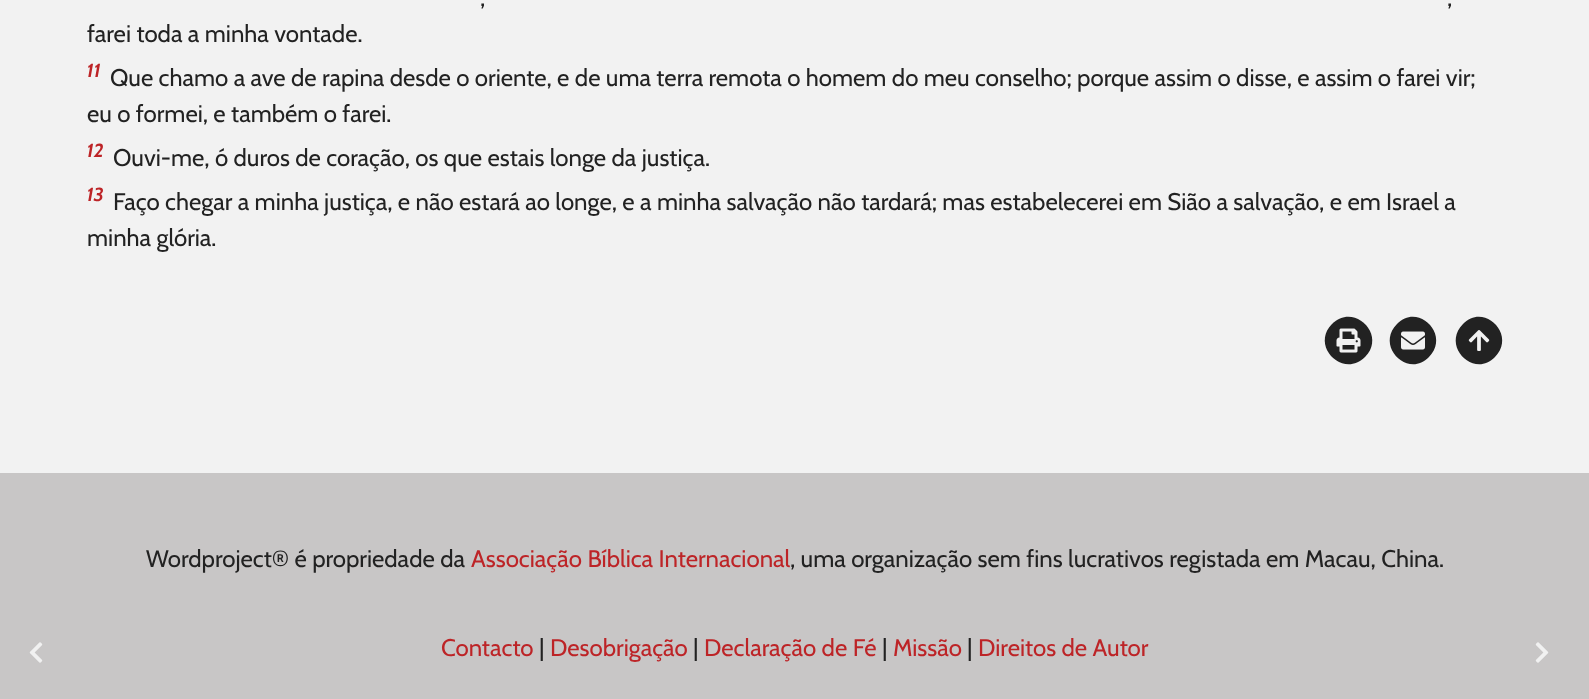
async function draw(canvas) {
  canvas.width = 1589
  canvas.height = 699
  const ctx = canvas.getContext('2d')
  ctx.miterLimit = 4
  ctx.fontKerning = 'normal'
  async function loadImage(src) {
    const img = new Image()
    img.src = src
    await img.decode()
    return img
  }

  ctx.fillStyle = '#f2f2f2'
  ctx.fillRect(0, 0, 1589, 699)
  ctx.font = '24px Cabin'
  ctx.fillStyle = '#222'
  ctx.fillText(',', 480, 6)
  ctx.fillText(',', 1447, 6)
  ctx.fillText('farei toda a minha vontade.', 87, 42)
  ctx.font = 'italic bold 19px Cabin'
  ctx.fillStyle = '#bd2427'
  ctx.fillText('11', 87, 77)
  ctx.font = '24px Cabin'
  ctx.fillStyle = '#222'
  ctx.fillText('Que chamo a ave de rapina desde o oriente, e de uma terra remota o homem do meu conselho; porque assim o disse, e assim o farei vir;', 110, 86)
  ctx.fillText('eu o formei, e também o farei.', 87, 122)
  ctx.font = 'italic bold 19px Cabin'
  ctx.fillStyle = '#bd2427'
  ctx.fillText('12', 87, 157)
  ctx.font = '24px Cabin'
  ctx.fillStyle = '#222'
  ctx.fillText('Ouvi-me, ó duros de coração, os que estais longe da justiça.', 113, 166)
  ctx.font = 'italic bold 19px Cabin'
  ctx.fillStyle = '#bd2427'
  ctx.fillText('13', 87, 201)
  ctx.font = '24px Cabin'
  ctx.fillStyle = '#222'
  ctx.fillText('Faço chegar a minha justiça, e não estará ao longe, e a minha salvação não tardará; mas estabelecerei em Sião a salvação, e em Israel a', 113, 210)
  ctx.fillText('minha glória.', 87, 246)
  ctx.fillStyle = '#c8c6c6'
  ctx.fillRect(0, 473, 1589, 226)
  ctx.drawImage(await loadImage('image0.png'), 29, 642, 14, 21)
  ctx.drawImage(await loadImage('image1.png'), 1535, 642, 14, 21)
  ctx.fillStyle = '#222'
  ctx.beginPath()
  ctx.moveTo(1332, 324)
  ctx.bezierCurveTo(1354, 302, 1387, 335, 1365, 357)
  ctx.bezierCurveTo(1343, 379, 1310, 346, 1332, 324)
  ctx.closePath()
  ctx.fill()
  ctx.drawImage(await loadImage('image2.png'), 1336, 328, 25, 25)
  ctx.beginPath()
  ctx.moveTo(1397, 324)
  ctx.bezierCurveTo(1418, 302, 1451, 335, 1429, 357)
  ctx.bezierCurveTo(1408, 379, 1375, 346, 1397, 324)
  ctx.closePath()
  ctx.fill()
  ctx.drawImage(await loadImage('image3.png'), 1401, 331, 24, 19)
  ctx.beginPath()
  ctx.moveTo(1463, 324)
  ctx.bezierCurveTo(1484, 302, 1517, 335, 1495, 357)
  ctx.bezierCurveTo(1474, 379, 1441, 346, 1463, 324)
  ctx.closePath()
  ctx.fill()
  ctx.drawImage(await loadImage('image4.png'), 1468, 330, 22, 21)
  ctx.fillText('Wordproject® é propriedade da', 146, 567)
  ctx.fillStyle = '#bd2427'
  ctx.fillText('Associação Bíblica Internacional', 471, 567)
  ctx.fillStyle = '#222'
  ctx.fillText(', uma organização sem fins lucrativos registada em Macau, China.', 790, 567)
  ctx.fillStyle = '#bd2427'
  ctx.fillText('Contacto', 441, 656)
  ctx.fillStyle = '#222'
  ctx.fillText('|', 539, 656)
  ctx.fillStyle = '#bd2427'
  ctx.fillText('Desobrigação', 550, 656)
  ctx.fillStyle = '#222'
  ctx.fillText('|', 693, 656)
  ctx.fillStyle = '#bd2427'
  ctx.fillText('Declaração de Fé', 704, 656)
  ctx.fillStyle = '#222'
  ctx.fillText('|', 882, 656)
  ctx.fillStyle = '#bd2427'
  ctx.fillText('Missão', 893, 656)
  ctx.fillStyle = '#222'
  ctx.fillText('|', 967, 656)
  ctx.fillStyle = '#bd2427'
  ctx.fillText('Direitos de Autor', 978, 656)
}

draw(document.querySelector('canvas'))
